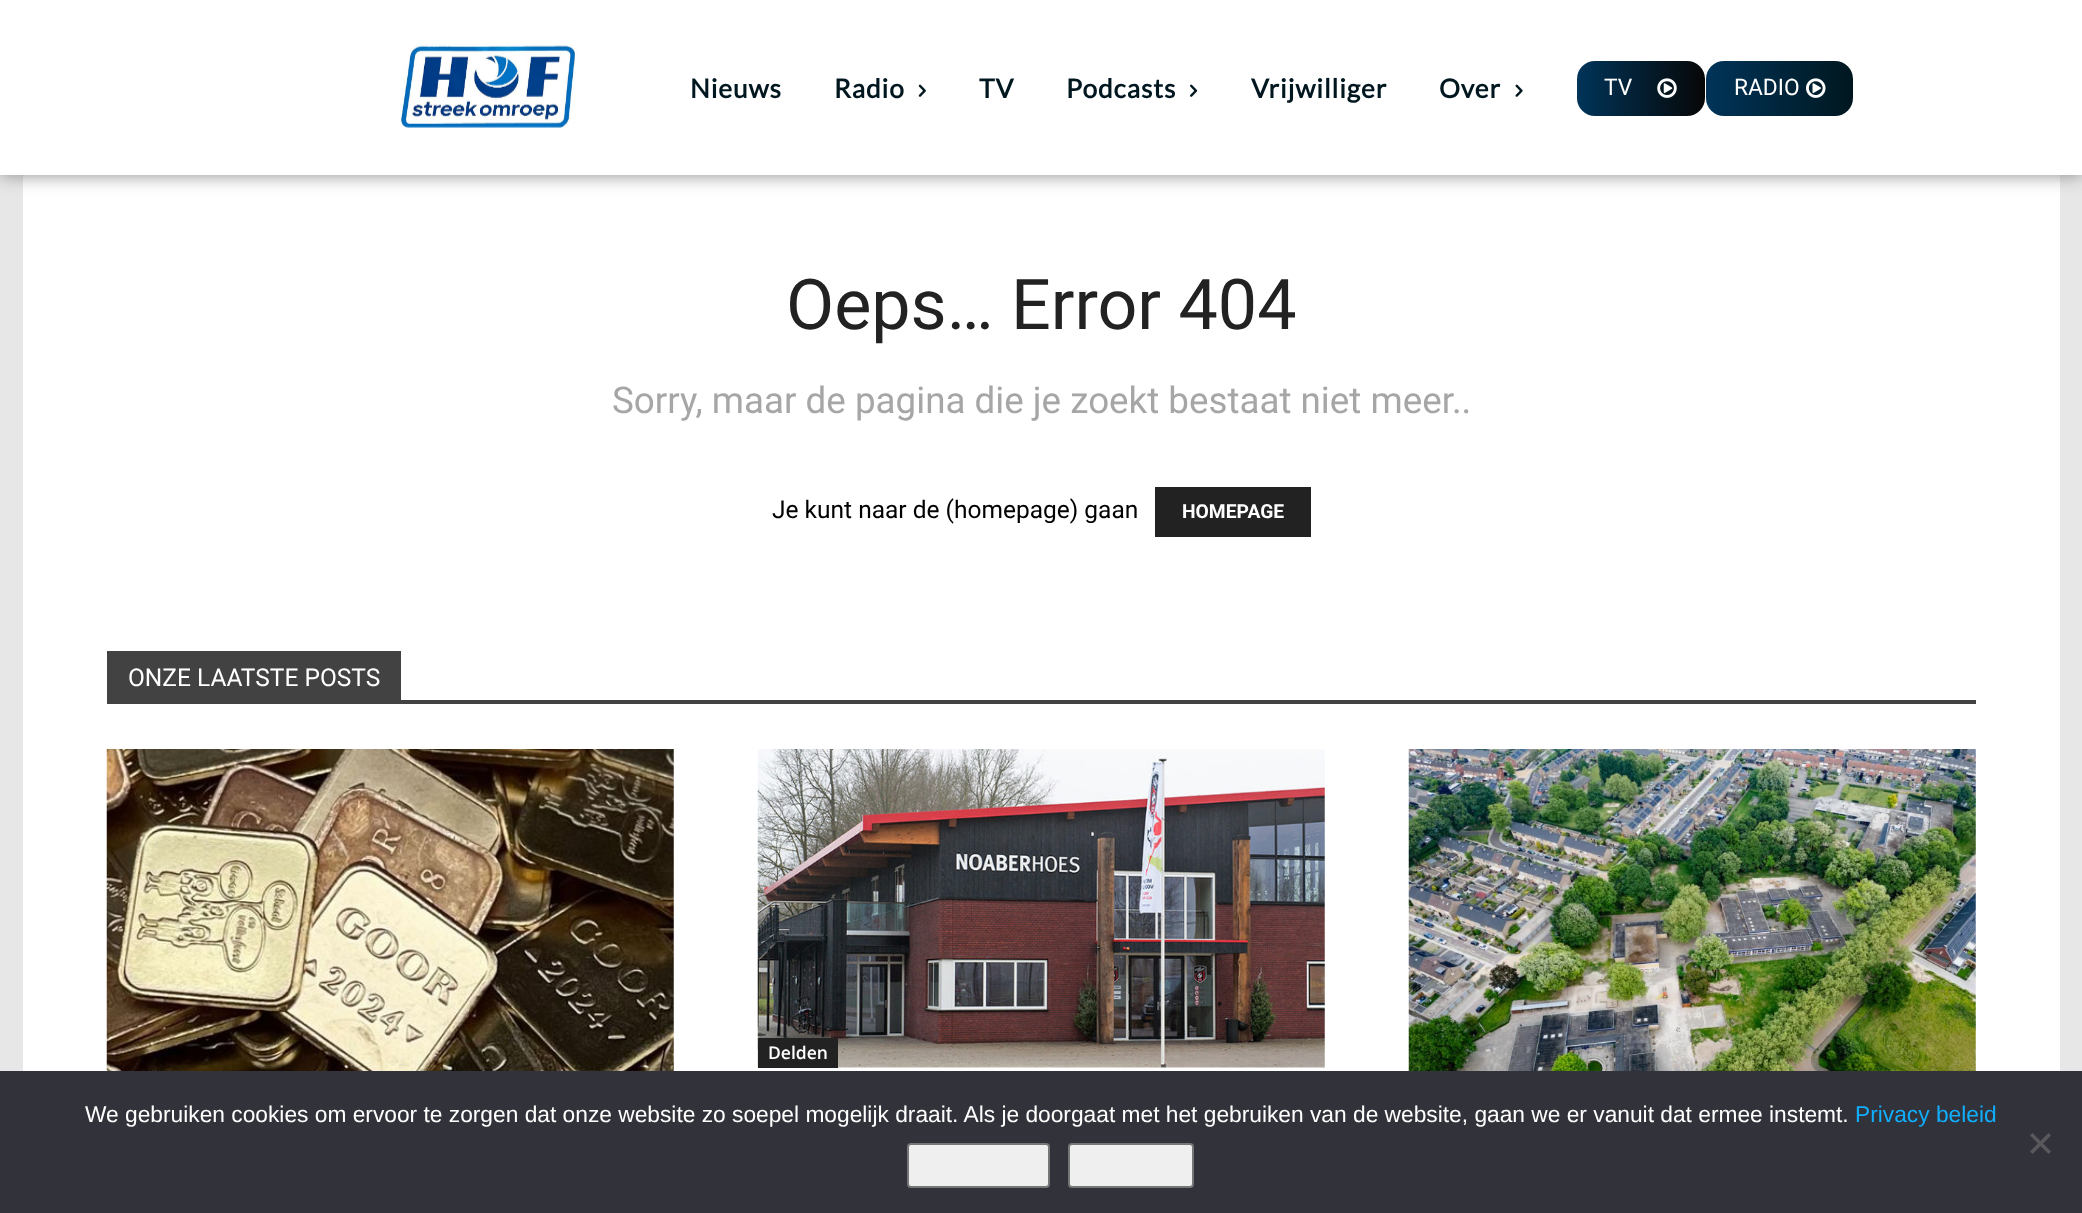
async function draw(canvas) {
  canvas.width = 2082
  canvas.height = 1213
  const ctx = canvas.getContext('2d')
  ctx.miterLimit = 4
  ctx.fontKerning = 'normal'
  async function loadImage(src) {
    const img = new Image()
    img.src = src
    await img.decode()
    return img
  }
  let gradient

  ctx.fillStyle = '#e7e7e7'
  ctx.fillRect(0, 0, 2082, 1213)
  ctx.fillStyle = '#fff'
  ctx.fillRect(23, 175, 2037, 896)
  ctx.fillStyle = '#888'
  ctx.filter = 'blur(9px)'
  ctx.beginPath()
  ctx.rect(0, 0, 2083, 175)
  ctx.fill()
  ctx.filter = 'none'
  ctx.fillStyle = '#fff'
  ctx.fillRect(0, 0, 2082, 175)
  ctx.drawImage(await loadImage('image0.png'), 399, 43, 178, 85)
  ctx.letterSpacing = '0.9px'
  ctx.font = 'bold 26.25px Lato'
  ctx.fillStyle = '#00171f'
  ctx.fillText('Nieuws', 690, 98)
  ctx.fillText('Radio', 834, 98)
  ctx.drawImage(await loadImage('image1.png'), 918, 84, 8, 13)
  ctx.fillText('TV', 979, 98)
  ctx.fillText('Podcasts', 1066, 98)
  ctx.drawImage(await loadImage('image2.png'), 1190, 84, 8, 13)
  ctx.fillText('Vrijwilliger', 1251, 98)
  ctx.fillText('Over', 1439, 98)
  ctx.drawImage(await loadImage('image3.png'), 1515, 84, 8, 13)
  gradient = ctx.createLinearGradient(1705, 88, 1577, 88)
  gradient.addColorStop(0, '#070707')
  gradient.addColorStop(1, '#003459')
  ctx.fillStyle = gradient
  ctx.beginPath()
  ctx.roundRect(1577, 61, 128, 55, 18)
  ctx.fill()
  ctx.letterSpacing = '0px'
  ctx.font = '22.75px Roboto'
  ctx.fillStyle = '#fff'
  ctx.fillText('TV', 1604, 95)
  ctx.drawImage(await loadImage('image4.png'), 1657, 78, 20, 20)
  gradient = ctx.createLinearGradient(1853, 88, 1706, 88)
  gradient.addColorStop(0, '#00171f')
  gradient.addColorStop(1, '#003459')
  ctx.fillStyle = gradient
  ctx.beginPath()
  ctx.roundRect(1706, 61, 147, 55, 18)
  ctx.fill()
  ctx.fillStyle = '#fff'
  ctx.fillText('RADIO', 1734, 95)
  ctx.drawImage(await loadImage('image5.png'), 1806, 78, 20, 20)
  ctx.font = '70px Roboto'
  ctx.fillStyle = '#222'
  ctx.fillText('Oeps… Error 404', 786, 329)
  ctx.font = '36.75px Roboto'
  ctx.fillStyle = '#a6a6a6'
  ctx.fillText('Sorry, maar de pagina die je zoekt bestaat niet meer..', 612, 413)
  ctx.font = '24.5px Roboto'
  ctx.fillStyle = '#000'
  ctx.fillText('Je kunt naar de (homepage) gaan', 772, 518)
  ctx.fillStyle = '#222'
  ctx.fillRect(1155, 487, 156, 50)
  ctx.font = 'bold 19.25px Roboto'
  ctx.fillStyle = '#fff'
  ctx.fillText('HOMEPAGE', 1182, 518)
  ctx.fillStyle = '#424242'
  ctx.fillRect(107, 700, 1869, 4)
  ctx.fillRect(107, 651, 294, 49)
  ctx.font = '24.5px Roboto'
  ctx.fillStyle = '#fff'
  ctx.fillText('ONZE LAATSTE POSTS', 128, 686)
  ctx.drawImage(await loadImage('image6.png'), 106, 749, 568, 322)
  ctx.drawImage(await loadImage('image7.png'), 757, 749, 568, 319)
  ctx.fillStyle = '#222'
  ctx.fillRect(758, 1038, 80, 30)
  ctx.font = '600 17.5px Open Sans'
  ctx.fillStyle = '#fff'
  ctx.fillText('Delden', 768, 1059)
  ctx.drawImage(await loadImage('image8.png'), 1408, 749, 568, 322)
  ctx.fillStyle = '#32323a'
  ctx.fillRect(0, 1071, 2082, 142)
  ctx.font = '22.75px Liberation Sans'
  ctx.fillStyle = '#fff'
  ctx.fillText('We gebruiken cookies om ervoor te zorgen dat onze website zo soepel mogelijk draait. Als je doorgaat met het gebruiken van de website, gaan we er vanuit dat ermee instemt.', 85, 1122)
  ctx.fillStyle = '#11aefc'
  ctx.fillText('Privacy beleid', 1855, 1122)
  ctx.fillStyle = '#efefef'
  ctx.beginPath()
  ctx.roundRect(908, 1144, 141, 43, 3)
  ctx.fill()
  ctx.strokeStyle = '#767676'
  ctx.lineWidth = 2
  ctx.stroke()
  ctx.beginPath()
  ctx.roundRect(1069, 1144, 124, 43, 3)
  ctx.fill()
  ctx.stroke()
  ctx.fillStyle = '#59595d'
  ctx.beginPath()
  ctx.moveTo(2048.5, 1133)
  ctx.lineTo(2051, 1135.5)
  ctx.lineTo(2032.5, 1154)
  ctx.lineTo(2030, 1151.5)
  ctx.closePath()
  ctx.fill()
  ctx.beginPath()
  ctx.moveTo(2030, 1135.5)
  ctx.lineTo(2032.5, 1133)
  ctx.lineTo(2051, 1151.5)
  ctx.lineTo(2048.5, 1154)
  ctx.closePath()
  ctx.fill()
}

draw(document.querySelector('canvas'))
